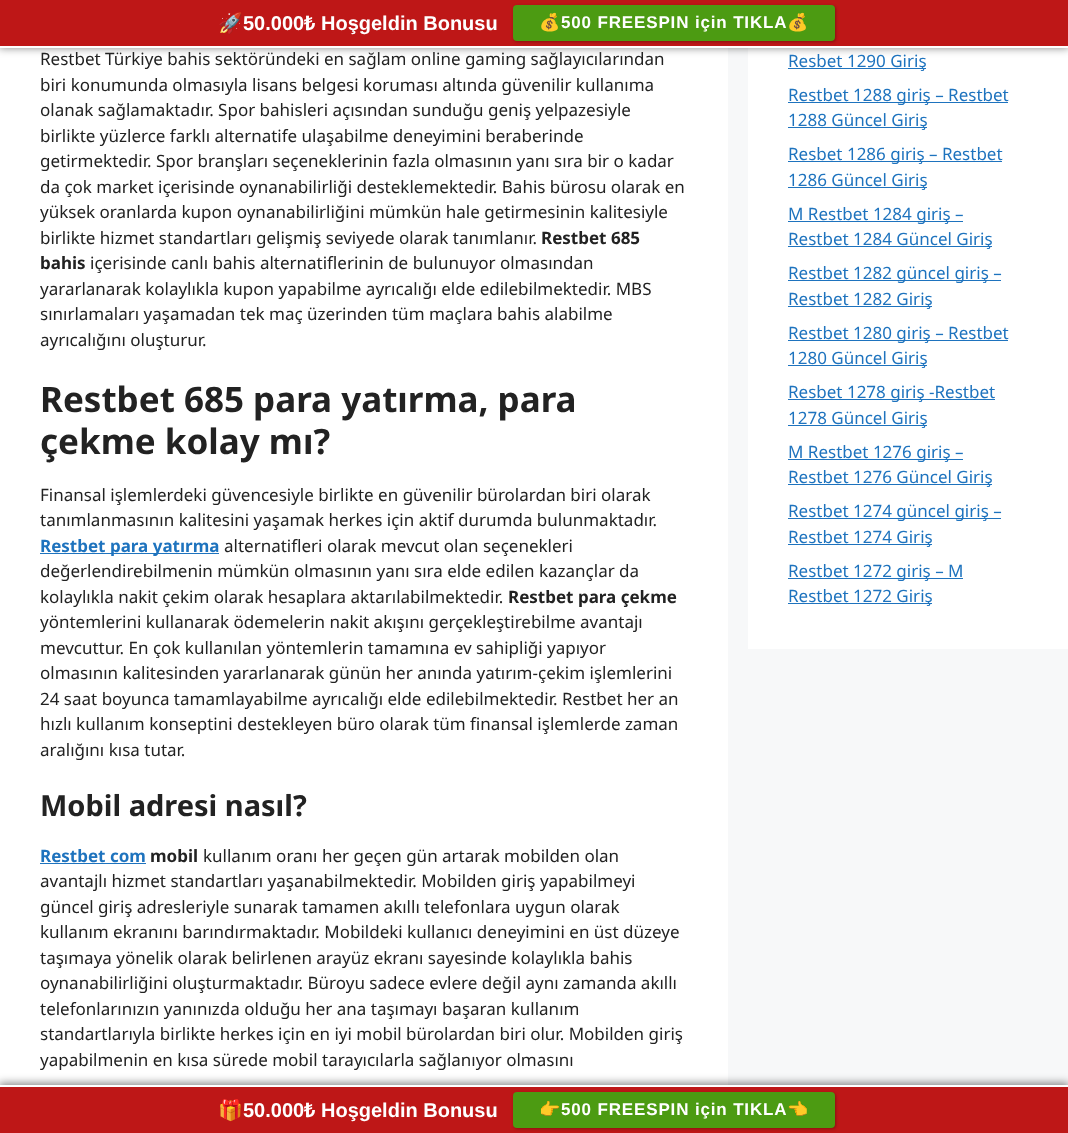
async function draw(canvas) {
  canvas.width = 1068
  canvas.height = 1133
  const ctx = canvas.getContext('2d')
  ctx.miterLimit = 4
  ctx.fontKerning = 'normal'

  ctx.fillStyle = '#f7f8f9'
  ctx.fillRect(0, 0, 1068, 1133)
  ctx.fillStyle = '#fff'
  ctx.fillRect(0, 48, 728, 1037)
  ctx.fillRect(748, 48, 320, 601)
  ctx.fillStyle = '#00000078'
  ctx.filter = 'blur(4.5px)'
  ctx.beginPath()
  ctx.rect(-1, -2, 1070, 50)
  ctx.fill()
  ctx.filter = 'none'
  ctx.fillStyle = '#be1717'
  ctx.fillRect(0, 0, 1068, 46)
  ctx.fillStyle = '#fff'
  ctx.fillRect(0, 46, 1068, 2)
  ctx.font = 'bold 20px Noto Color Emoji'
  ctx.fillText('🚀', 218, 30)
  ctx.font = 'bold 20px Liberation Sans'
  ctx.fillText('50.000', 243, 30)
  ctx.font = 'bold 20px Noto Sans'
  ctx.fillText('₺', 304, 30)
  ctx.font = 'bold 20px Liberation Sans'
  ctx.fillText('Hoşgeldin Bonusu', 321, 30)
  ctx.fillStyle = '#00000047'
  ctx.filter = 'blur(1.5px)'
  ctx.beginPath()
  ctx.roundRect(514, 6, 322, 36, 4)
  ctx.fill()
  ctx.filter = 'none'
  ctx.fillStyle = '#4c9b12'
  ctx.beginPath()
  ctx.roundRect(513, 5, 322, 36, 4)
  ctx.fill()
  ctx.letterSpacing = '0.85px'
  ctx.font = 'bold 17px Noto Color Emoji'
  ctx.fillStyle = '#fff'
  ctx.fillText('💰', 539, 28)
  ctx.font = 'bold 17px Liberation Sans'
  ctx.fillText('500 FREESPIN için TIKLA', 561, 28)
  ctx.font = 'bold 17px Noto Color Emoji'
  ctx.fillText('💰', 787, 28)
  ctx.letterSpacing = '0px'
  ctx.font = '17px Noto Sans'
  ctx.fillStyle = '#222'
  ctx.fillText('Restbet Türkiye bahis sektöründeki en sağlam online gaming sağlayıcılarından', 40, 65)
  ctx.fillText('biri konumunda olmasıyla lisans belgesi koruması altında güvenilir kullanıma', 40, 91)
  ctx.fillText('olanak sağlamaktadır. Spor bahisleri açısından sunduğu geniş yelpazesiyle', 40, 116)
  ctx.fillText('birlikte yüzlerce farklı alternatife ulaşabilme deneyimini beraberinde', 40, 142)
  ctx.fillText('getirmektedir. Spor branşları seçeneklerinin fazla olmasının yanı sıra bir o kadar', 40, 167)
  ctx.fillText('da çok market içerisinde oynanabilirliği desteklemektedir. Bahis bürosu olarak en', 40, 193)
  ctx.fillText('yüksek oranlarda kupon oynanabilirliğini mümkün hale getirmesinin kalitesiyle', 40, 218)
  ctx.fillText('birlikte hizmet standartları gelişmiş seviyede olarak tanımlanır.', 40, 244)
  ctx.font = 'bold 17px Noto Sans'
  ctx.fillText('Restbet 685', 541, 244)
  ctx.fillText('bahis', 40, 269)
  ctx.font = '17px Noto Sans'
  ctx.fillText('içerisinde canlı bahis alternatiflerinin de bulunuyor olmasından', 90, 269)
  ctx.fillText('yararlanarak kolaylıkla kupon yapabilme ayrıcalığı elde edilebilmektedir. MBS', 40, 295)
  ctx.fillText('sınırlamaları yaşamadan tek maç üzerinden tüm maçlara bahis alabilme', 40, 320)
  ctx.fillText('ayrıcalığını oluşturur.', 40, 346)
  ctx.font = 'bold 35px Noto Sans'
  ctx.fillText('Restbet 685 para yatırma, para', 40, 412)
  ctx.fillText('çekme kolay mı?', 40, 454)
  ctx.font = '17px Noto Sans'
  ctx.fillText('Finansal işlemlerdeki güvencesiyle birlikte en güvenilir bürolardan biri olarak', 40, 501)
  ctx.fillText('tanımlanmasının kalitesini yaşamak herkes için aktif durumda bulunmaktadır.', 40, 526)
  ctx.fillStyle = '#1e73be'
  ctx.fillRect(40, 553, 179, 1)
  ctx.font = 'bold 17px Noto Sans'
  ctx.fillText('Restbet para yatırma', 40, 552)
  ctx.font = '17px Noto Sans'
  ctx.fillStyle = '#222'
  ctx.fillText('alternatifleri olarak mevcut olan seçenekleri', 224, 552)
  ctx.fillText('değerlendirebilmenin mümkün olmasının yanı sıra elde edilen kazançlar da', 40, 577)
  ctx.fillText('kolaylıkla nakit çekim olarak hesaplara aktarılabilmektedir.', 40, 603)
  ctx.font = 'bold 17px Noto Sans'
  ctx.fillText('Restbet para çekme', 508, 603)
  ctx.font = '17px Noto Sans'
  ctx.fillText('yöntemlerini kullanarak ödemelerin nakit akışını gerçekleştirebilme avantajı', 40, 628)
  ctx.fillText('mevcuttur. En çok kullanılan yöntemlerin tamamına ev sahipliği yapıyor', 40, 654)
  ctx.fillText('olmasının kalitesinden yararlanarak günün her anında yatırım-çekim işlemlerini', 40, 679)
  ctx.fillText('24 saat boyunca tamamlayabilme ayrıcalığı elde edilebilmektedir. Restbet her an', 40, 705)
  ctx.fillText('hızlı kullanım konseptini destekleyen büro olarak tüm finansal işlemlerde zaman', 40, 730)
  ctx.fillText('aralığını kısa tutar.', 40, 756)
  ctx.font = 'bold 29px Noto Sans'
  ctx.fillText('Mobil adresi nasıl?', 40, 816)
  ctx.font = 'bold 17px Noto Sans'
  ctx.fillStyle = '#1e73be'
  ctx.fillText('Restbet com', 40, 862)
  ctx.fillRect(40, 863, 106, 1)
  ctx.fillStyle = '#222'
  ctx.fillText('mobil', 150, 862)
  ctx.font = '17px Noto Sans'
  ctx.fillText('kullanım oranı her geçen gün artarak mobilden olan', 203, 862)
  ctx.fillText('avantajlı hizmet standartları yaşanabilmektedir. Mobilden giriş yapabilmeyi', 40, 887)
  ctx.fillText('güncel giriş adresleriyle sunarak tamamen akıllı telefonlara uygun olarak', 40, 913)
  ctx.fillText('kullanım ekranını barındırmaktadır. Mobildeki kullanıcı deneyimini en üst düzeye', 40, 938)
  ctx.fillText('taşımaya yönelik olarak belirlenen arayüz ekranı sayesinde kolaylıkla bahis', 40, 964)
  ctx.fillText('oynanabilirliğini oluşturmaktadır. Büroyu sadece evlere değil aynı zamanda akıllı', 40, 989)
  ctx.fillText('telefonlarınızın yanınızda olduğu her ana taşımayı başaran kullanım', 40, 1015)
  ctx.fillText('standartlarıyla birlikte herkes için en iyi mobil bürolardan biri olur. Mobilden giriş', 40, 1040)
  ctx.fillText('yapabilmenin en kısa sürede mobil tarayıcılarla sağlanıyor olmasını', 40, 1066)
  ctx.fillStyle = '#1e73be'
  ctx.fillRect(788, 68, 138, 1)
  ctx.fillText('Resbet 1290 Giriş', 788, 67)
  ctx.fillRect(788, 102, 220, 1)
  ctx.fillText('Restbet 1288 giriş – Restbet', 788, 101)
  ctx.fillRect(788, 127, 139, 1)
  ctx.fillText('1288 Güncel Giriş', 788, 126)
  ctx.fillRect(788, 161, 214, 1)
  ctx.fillText('Resbet 1286 giriş – Restbet', 788, 160)
  ctx.fillRect(788, 187, 139, 1)
  ctx.fillText('1286 Güncel Giriş', 788, 186)
  ctx.fillRect(788, 221, 175, 1)
  ctx.fillText('M Restbet 1284 giriş –', 788, 220)
  ctx.fillRect(788, 246, 204, 1)
  ctx.fillText('Restbet 1284 Güncel Giriş', 788, 245)
  ctx.fillRect(788, 280, 213, 1)
  ctx.fillText('Restbet 1282 güncel giriş –', 788, 279)
  ctx.fillRect(788, 306, 144, 1)
  ctx.fillText('Restbet 1282 Giriş', 788, 305)
  ctx.fillRect(788, 340, 220, 1)
  ctx.fillText('Restbet 1280 giriş – Restbet', 788, 339)
  ctx.fillRect(788, 365, 139, 1)
  ctx.fillText('1280 Güncel Giriş', 788, 364)
  ctx.fillRect(788, 399, 207, 1)
  ctx.fillText('Resbet 1278 giriş -Restbet', 788, 398)
  ctx.fillRect(788, 425, 139, 1)
  ctx.fillText('1278 Güncel Giriş', 788, 424)
  ctx.fillRect(788, 459, 175, 1)
  ctx.fillText('M Restbet 1276 giriş –', 788, 458)
  ctx.fillRect(788, 484, 204, 1)
  ctx.fillText('Restbet 1276 Güncel Giriş', 788, 483)
  ctx.fillRect(788, 518, 213, 1)
  ctx.fillText('Restbet 1274 güncel giriş –', 788, 517)
  ctx.fillRect(788, 544, 144, 1)
  ctx.fillText('Restbet 1274 Giriş', 788, 543)
  ctx.fillRect(788, 578, 175, 1)
  ctx.fillText('Restbet 1272 giriş – M', 788, 577)
  ctx.fillRect(788, 603, 144, 1)
  ctx.fillText('Restbet 1272 Giriş', 788, 602)
  ctx.fillStyle = '#00000078'
  ctx.filter = 'blur(4.5px)'
  ctx.beginPath()
  ctx.rect(-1, 1083, 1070, 50)
  ctx.fill()
  ctx.filter = 'none'
  ctx.fillStyle = '#be1717'
  ctx.fillRect(0, 1087, 1068, 46)
  ctx.fillStyle = '#fff'
  ctx.fillRect(0, 1085, 1068, 2)
  ctx.font = 'bold 20px Noto Color Emoji'
  ctx.fillText('🎁', 218, 1117)
  ctx.font = 'bold 20px Liberation Sans'
  ctx.fillText('50.000', 243, 1117)
  ctx.font = 'bold 20px Noto Sans'
  ctx.fillText('₺', 304, 1117)
  ctx.font = 'bold 20px Liberation Sans'
  ctx.fillText('Hoşgeldin Bonusu', 321, 1117)
  ctx.fillStyle = '#00000047'
  ctx.filter = 'blur(1.5px)'
  ctx.beginPath()
  ctx.roundRect(514, 1093, 322, 36, 4)
  ctx.fill()
  ctx.filter = 'none'
  ctx.fillStyle = '#4c9b12'
  ctx.beginPath()
  ctx.roundRect(513, 1092, 322, 36, 4)
  ctx.fill()
  ctx.letterSpacing = '0.85px'
  ctx.font = 'bold 17px Noto Color Emoji'
  ctx.fillStyle = '#fff'
  ctx.fillText('👉', 539, 1115)
  ctx.font = 'bold 17px Liberation Sans'
  ctx.fillText('500 FREESPIN için TIKLA', 561, 1115)
  ctx.font = 'bold 17px Noto Color Emoji'
  ctx.fillText('👈', 787, 1115)
}

draw(document.querySelector('canvas'))
